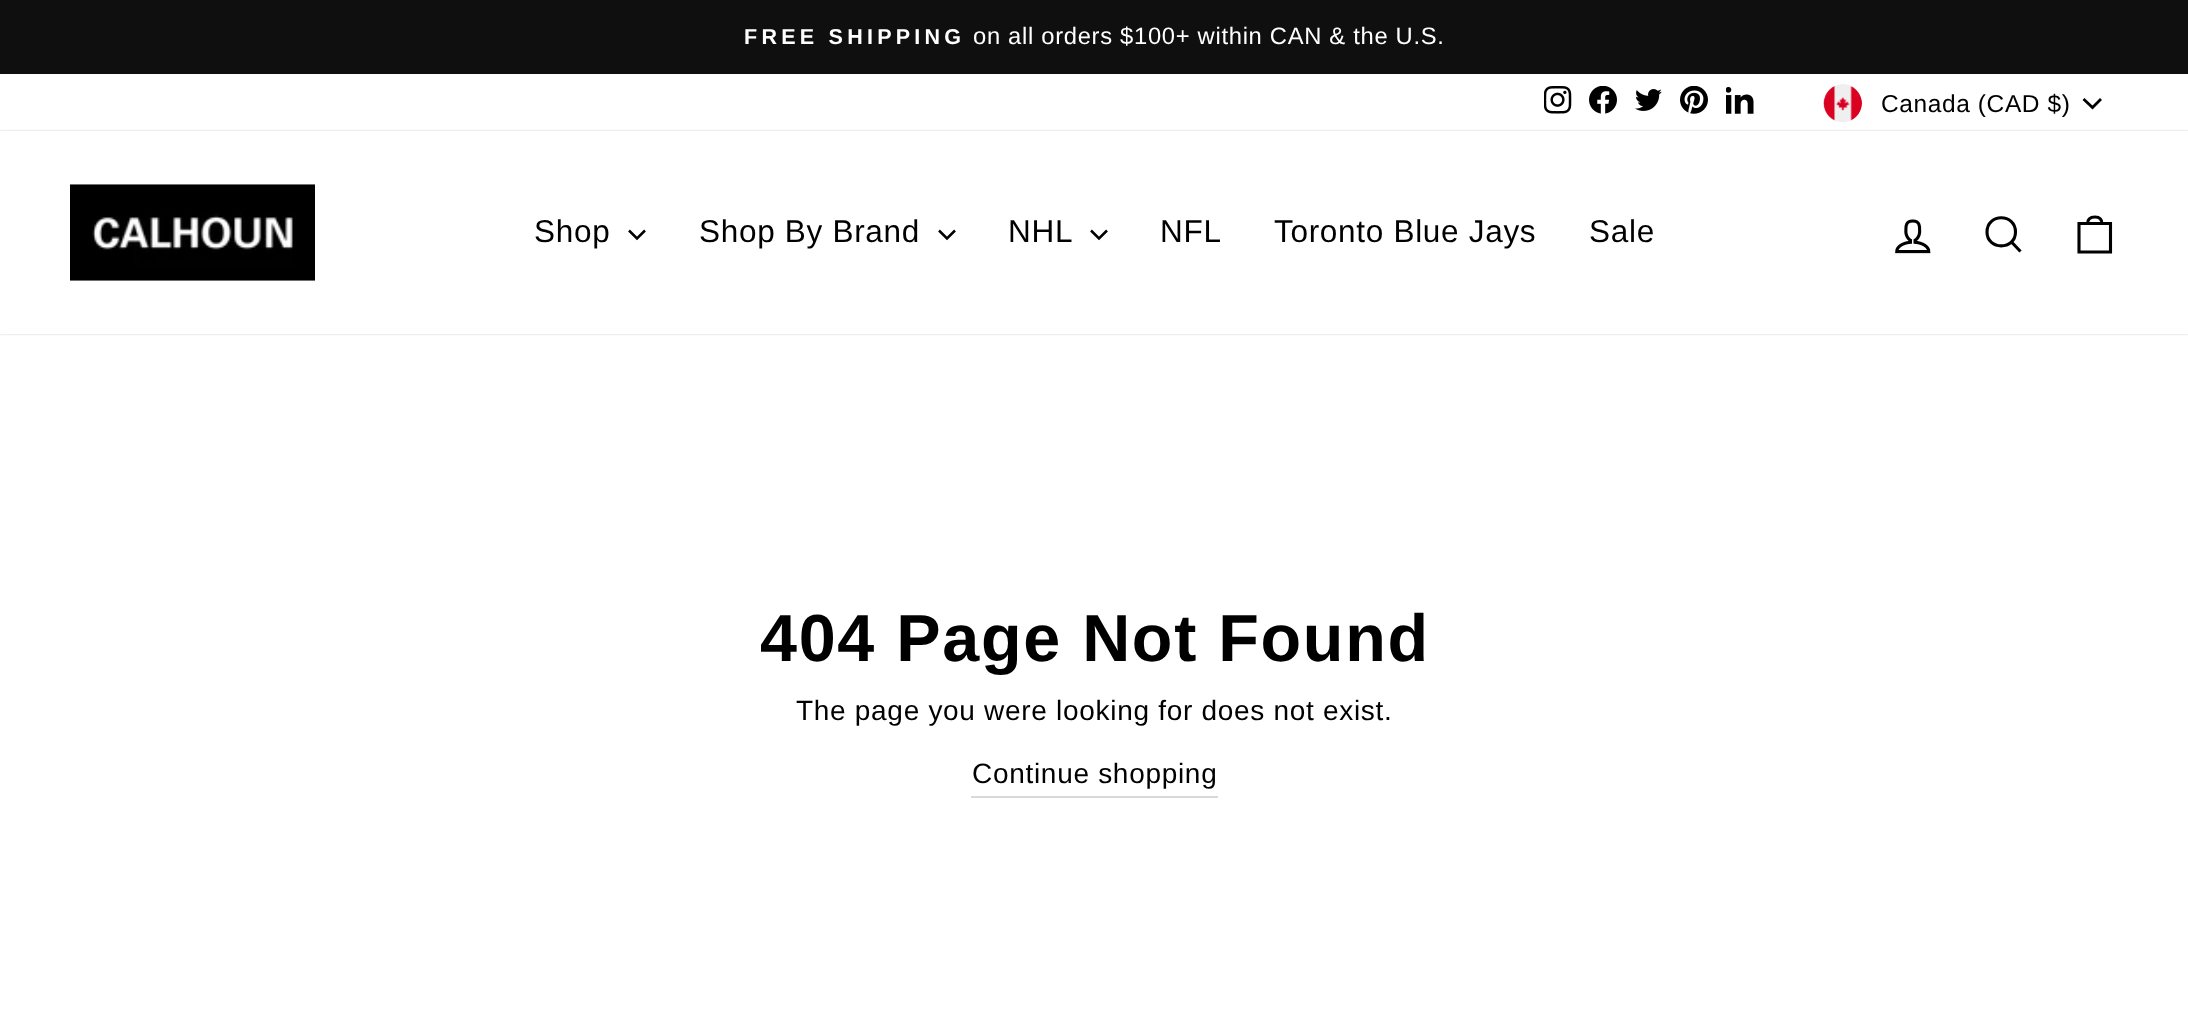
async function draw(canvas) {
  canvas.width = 2188
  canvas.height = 1021
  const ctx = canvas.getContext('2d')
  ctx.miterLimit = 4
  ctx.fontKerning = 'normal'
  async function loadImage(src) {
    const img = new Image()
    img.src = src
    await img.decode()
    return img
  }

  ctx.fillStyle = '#fff'
  ctx.fillRect(0, 0, 2188, 1021)
  ctx.fillStyle = '#0f0f0f'
  ctx.fillRect(0, 0, 2188, 74)
  ctx.letterSpacing = '4.25px'
  ctx.font = 'bold 21.5px Arimo'
  ctx.fillStyle = '#fff'
  ctx.fillText('FREE SHIPPING', 744, 44)
  ctx.letterSpacing = '0.7px'
  ctx.font = '23.75px Arimo'
  ctx.fillText('on all orders $100+ within CAN & the U.S.', 973, 44)
  ctx.drawImage(await loadImage('image0.png'), 1544, 86, 28, 28)
  ctx.drawImage(await loadImage('image1.png'), 1589, 86, 28, 28)
  ctx.drawImage(await loadImage('image2.png'), 1635, 89, 27, 22)
  ctx.drawImage(await loadImage('image3.png'), 1680, 86, 28, 28)
  ctx.drawImage(await loadImage('image4.png'), 1726, 86, 28, 28)
  ctx.drawImage(await loadImage('image5.png'), 1823, 84, 39, 38)
  ctx.letterSpacing = '0.6px'
  ctx.font = '24.5px Arimo'
  ctx.fillStyle = '#000'
  ctx.fillText('Canada (CAD $)', 1881, 112)
  ctx.beginPath()
  ctx.moveTo(2083.5, 99)
  ctx.lineTo(2092.5, 107.5)
  ctx.lineTo(2101, 99)
  ctx.strokeStyle = '#000'
  ctx.lineWidth = 2.8
  ctx.stroke()
  ctx.fillStyle = '#00000033'
  ctx.filter = 'blur(1px)'
  ctx.beginPath()
  ctx.rect(0, 131, 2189, 203)
  ctx.fill()
  ctx.filter = 'none'
  ctx.fillStyle = '#fff'
  ctx.fillRect(0, 131, 2188, 203)
  ctx.drawImage(await loadImage('image6.png'), 70, 184, 245, 97)
  ctx.letterSpacing = '0.7px'
  ctx.font = '31.5px Arimo'
  ctx.fillStyle = '#000'
  ctx.fillText('Shop', 534, 242)
  ctx.beginPath()
  ctx.moveTo(629, 230.5)
  ctx.lineTo(637, 238.5)
  ctx.lineTo(645, 230.5)
  ctx.lineWidth = 2.5
  ctx.stroke()
  ctx.fillText('Shop By Brand', 699, 242)
  ctx.beginPath()
  ctx.moveTo(939, 230.5)
  ctx.lineTo(947, 238.5)
  ctx.lineTo(955, 230.5)
  ctx.stroke()
  ctx.fillText('NHL', 1008, 242)
  ctx.beginPath()
  ctx.moveTo(1091, 230.5)
  ctx.lineTo(1099, 238.5)
  ctx.lineTo(1107, 230.5)
  ctx.stroke()
  ctx.fillText('NFL', 1160, 242)
  ctx.fillText('Toronto Blue Jays', 1274, 242)
  ctx.fillText('Sale', 1589, 242)
  ctx.drawImage(await loadImage('image7.png'), 1895, 219, 36, 35)
  ctx.beginPath()
  ctx.moveTo(2015.5, 232)
  ctx.bezierCurveTo(2015.5, 250.5, 1987, 250.5, 1987, 232)
  ctx.bezierCurveTo(1987, 213, 2015.5, 213, 2015.5, 232)
  ctx.closePath()
  ctx.moveTo(2020.5, 251.5)
  ctx.lineTo(2011.5, 242)
  ctx.lineWidth = 3.1
  ctx.stroke()
  ctx.beginPath()
  ctx.moveTo(2079, 223.5)
  ctx.lineTo(2110.5, 223.5)
  ctx.lineTo(2110.5, 252)
  ctx.lineTo(2079, 252)
  ctx.closePath()
  ctx.moveTo(2087.5, 224)
  ctx.bezierCurveTo(2087.5, 218.5, 2090.5, 217, 2095, 217)
  ctx.bezierCurveTo(2099, 217, 2102, 218.5, 2102, 224)
  ctx.stroke()
  ctx.letterSpacing = '1.7px'
  ctx.font = 'bold 66.5px Arimo'
  ctx.fillText('404 Page Not Found', 760, 661)
  ctx.letterSpacing = '0.7px'
  ctx.font = '28px Arimo'
  ctx.fillText('The page you were looking for does not exist.', 796, 720)
  ctx.fillStyle = '#d9d9d9'
  ctx.fillRect(971, 796, 247, 2)
  ctx.fillStyle = '#000'
  ctx.fillText('Continue shopping', 972, 783)
}

draw(document.querySelector('canvas'))
